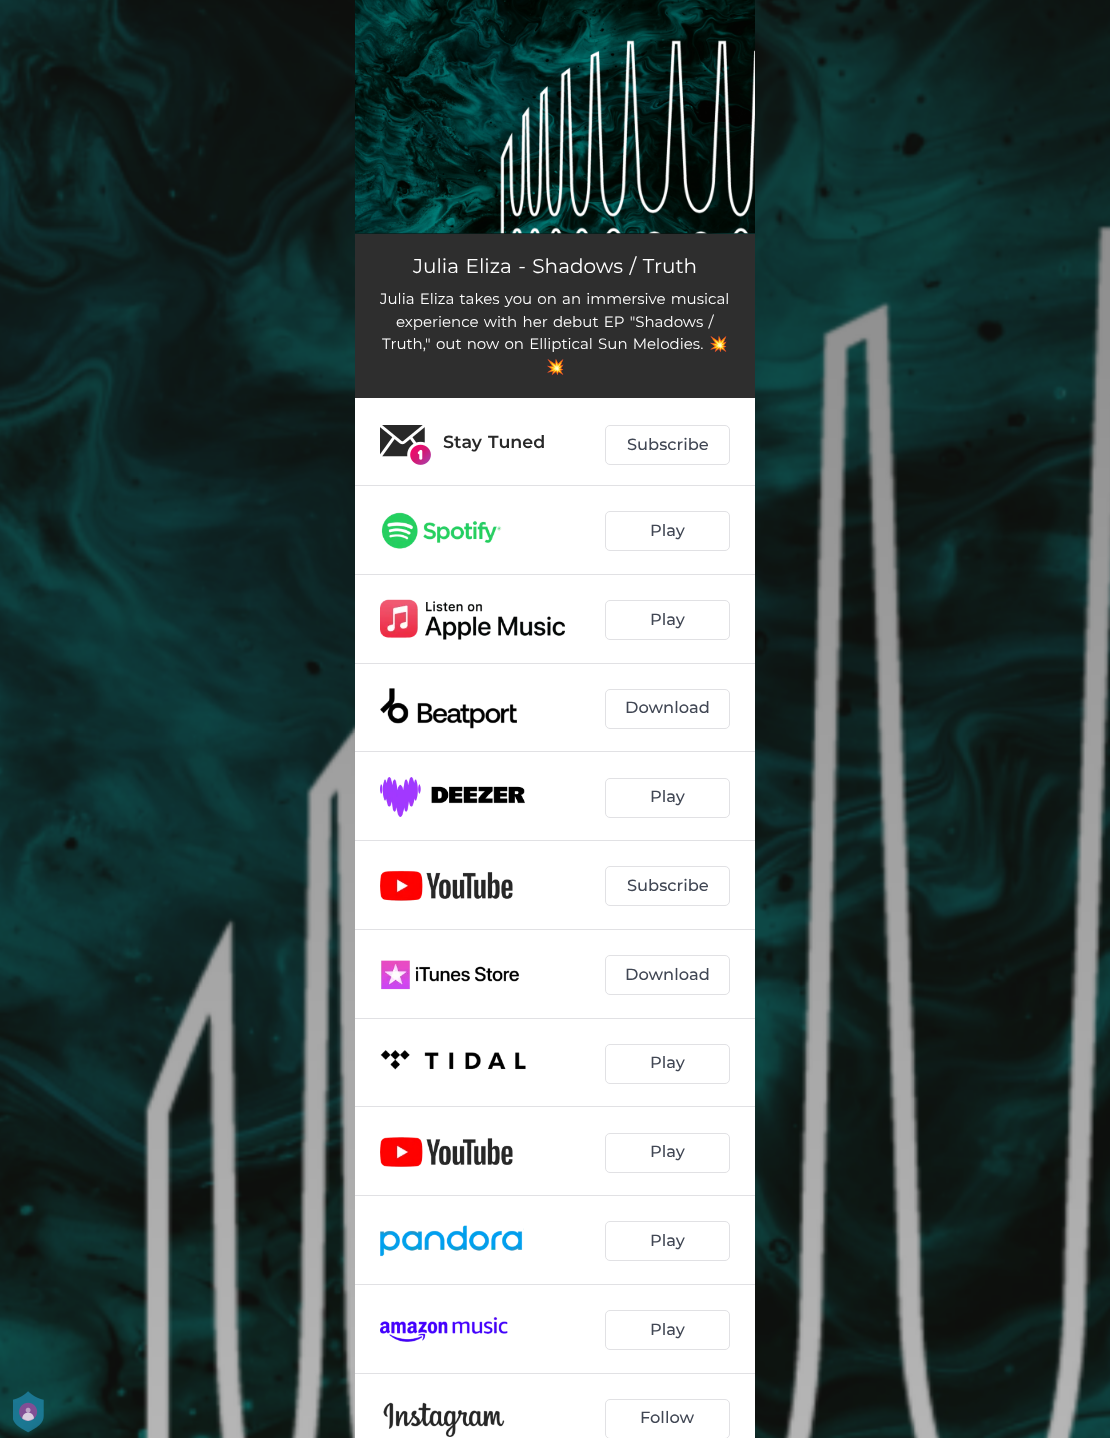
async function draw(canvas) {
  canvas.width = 1110
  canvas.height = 1438
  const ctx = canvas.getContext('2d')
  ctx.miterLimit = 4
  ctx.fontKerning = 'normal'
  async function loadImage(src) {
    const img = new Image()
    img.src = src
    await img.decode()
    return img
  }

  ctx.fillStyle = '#fff'
  ctx.fillRect(0, 0, 1110, 1438)
  ctx.drawImage(await loadImage('image1.png'), 0, 0, 1110, 1438)
  ctx.drawImage(await loadImage('image0.png'), 13, 1391, 31, 42)
  ctx.drawImage(await loadImage('image2.png'), 355, 0, 400, 234)
  ctx.fillStyle = '#2e2e2e'
  ctx.fillRect(355, 234, 400, 164)
  ctx.wordSpacing = '1.25px'
  ctx.font = '20px Montserrat'
  ctx.fillStyle = '#fff'
  ctx.fillText('Julia Eliza - Shadows / Truth', 413, 273)
  ctx.font = '15px Montserrat'
  ctx.fillText('Julia Eliza takes you on an immersive musical', 380, 304)
  ctx.fillText('experience with her debut EP "Shadows /', 396, 327)
  ctx.fillText('Truth," out now on Elliptical Sun Melodies.', 382, 349)
  ctx.wordSpacing = '0px'
  ctx.font = '15px Noto Color Emoji'
  ctx.fillText('💥', 709, 349)
  ctx.fillText('💥', 546, 372)
  ctx.fillRect(355, 398, 400, 1040)
  ctx.fillStyle = '#e1e1e4'
  ctx.fillRect(355, 485, 400, 1)
  ctx.drawImage(await loadImage('image3.png'), 380, 425, 51, 40)
  ctx.wordSpacing = '1.25px'
  ctx.font = '600 17.5px Montserrat'
  ctx.fillStyle = '#282828'
  ctx.fillText('Stay Tuned', 443, 448)
  ctx.beginPath()
  ctx.roundRect(605.5, 425.5, 124, 39, 4.5)
  ctx.strokeStyle = '#e1e1e4'
  ctx.stroke()
  ctx.wordSpacing = '0px'
  ctx.font = '500 16.25px Montserrat'
  ctx.fillStyle = '#414754'
  ctx.fillText('Subscribe', 627, 450)
  ctx.fillStyle = '#e1e1e4'
  ctx.fillRect(355, 574, 400, 1)
  ctx.drawImage(await loadImage('image4.png'), 381, 512, 121, 37)
  ctx.beginPath()
  ctx.roundRect(605.5, 511.5, 124, 39, 4.5)
  ctx.stroke()
  ctx.fillStyle = '#414754'
  ctx.fillText('Play', 650, 536)
  ctx.fillStyle = '#e1e1e4'
  ctx.fillRect(355, 663, 400, 1)
  ctx.drawImage(await loadImage('image5.png'), 380, 599, 185, 41)
  ctx.beginPath()
  ctx.roundRect(605.5, 600.5, 124, 39, 4.5)
  ctx.stroke()
  ctx.fillStyle = '#414754'
  ctx.fillText('Play', 650, 625)
  ctx.fillStyle = '#e1e1e4'
  ctx.fillRect(355, 751, 400, 1)
  ctx.drawImage(await loadImage('image6.png'), 380, 688, 137, 41)
  ctx.beginPath()
  ctx.roundRect(605.5, 689.5, 124, 39, 4.5)
  ctx.stroke()
  ctx.fillStyle = '#414754'
  ctx.fillText('Download', 625, 713)
  ctx.fillStyle = '#e1e1e4'
  ctx.fillRect(355, 840, 400, 1)
  ctx.drawImage(await loadImage('image7.png'), 380, 777, 145, 40)
  ctx.beginPath()
  ctx.roundRect(605.5, 778.5, 124, 39, 4.5)
  ctx.stroke()
  ctx.fillStyle = '#414754'
  ctx.fillText('Play', 650, 802)
  ctx.fillStyle = '#e1e1e4'
  ctx.fillRect(355, 929, 400, 1)
  ctx.drawImage(await loadImage('image8.png'), 380, 870, 133, 31)
  ctx.beginPath()
  ctx.roundRect(605.5, 866.5, 124, 39, 4.5)
  ctx.stroke()
  ctx.fillStyle = '#414754'
  ctx.fillText('Subscribe', 627, 891)
  ctx.fillStyle = '#e1e1e4'
  ctx.fillRect(355, 1018, 400, 1)
  ctx.drawImage(await loadImage('image9.png'), 381, 960, 139, 30)
  ctx.beginPath()
  ctx.roundRect(605.5, 955.5, 124, 39, 4.5)
  ctx.stroke()
  ctx.fillStyle = '#414754'
  ctx.fillText('Download', 625, 980)
  ctx.fillStyle = '#e1e1e4'
  ctx.fillRect(355, 1106, 400, 1)
  ctx.drawImage(await loadImage('image10.png'), 380, 1050, 146, 20)
  ctx.beginPath()
  ctx.roundRect(605.5, 1044.5, 124, 39, 4.5)
  ctx.stroke()
  ctx.fillStyle = '#414754'
  ctx.fillText('Play', 650, 1068)
  ctx.fillStyle = '#e1e1e4'
  ctx.fillRect(355, 1195, 400, 1)
  ctx.drawImage(await loadImage('image11.png'), 380, 1137, 133, 30)
  ctx.beginPath()
  ctx.roundRect(605.5, 1133.5, 124, 39, 4.5)
  ctx.stroke()
  ctx.fillStyle = '#414754'
  ctx.fillText('Play', 650, 1157)
  ctx.fillStyle = '#e1e1e4'
  ctx.fillRect(355, 1284, 400, 1)
  ctx.drawImage(await loadImage('image12.png'), 380, 1225, 144, 32)
  ctx.beginPath()
  ctx.roundRect(605.5, 1221.5, 124, 39, 4.5)
  ctx.stroke()
  ctx.fillStyle = '#414754'
  ctx.fillText('Play', 650, 1246)
  ctx.fillStyle = '#e1e1e4'
  ctx.fillRect(355, 1373, 400, 1)
  ctx.drawImage(await loadImage('image13.png'), 380, 1317, 128, 25)
  ctx.beginPath()
  ctx.roundRect(605.5, 1310.5, 124, 39, 4.5)
  ctx.stroke()
  ctx.fillStyle = '#414754'
  ctx.fillText('Play', 650, 1335)
  ctx.drawImage(await loadImage('image14.png'), 383, 1402, 122, 35)
  ctx.beginPath()
  ctx.roundRect(605.5, 1399.5, 124, 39, 4.5)
  ctx.stroke()
  ctx.fillText('Follow', 640, 1423)
}

draw(document.querySelector('canvas'))
